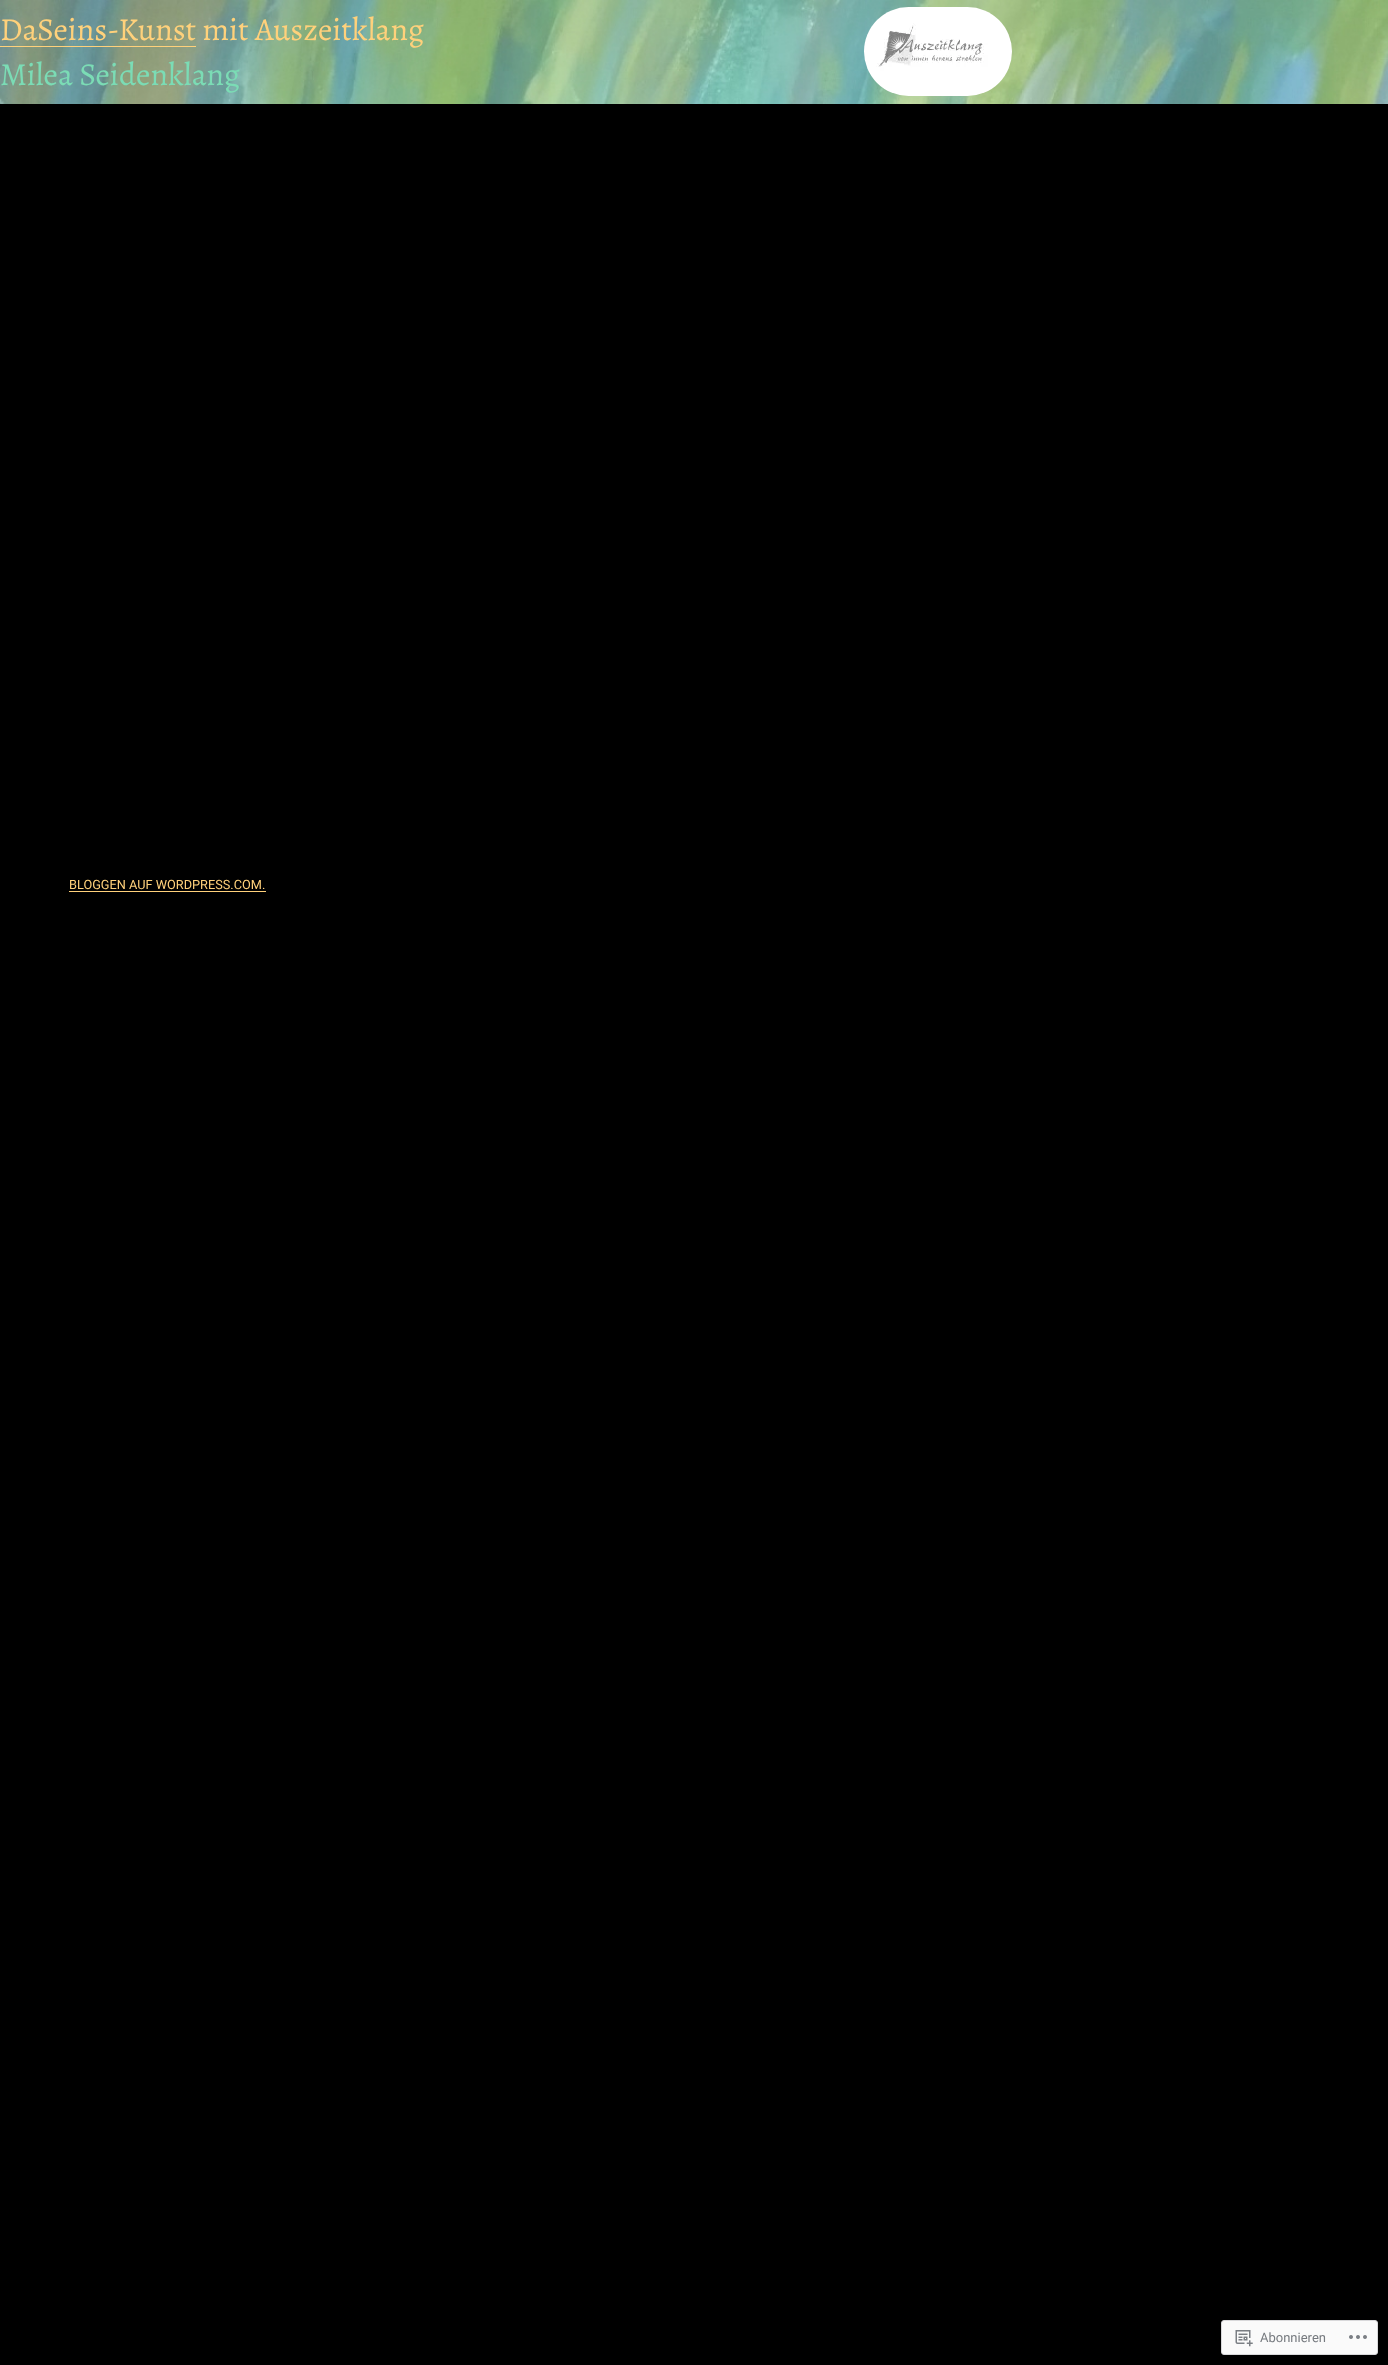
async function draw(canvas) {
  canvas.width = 1388
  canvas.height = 2365
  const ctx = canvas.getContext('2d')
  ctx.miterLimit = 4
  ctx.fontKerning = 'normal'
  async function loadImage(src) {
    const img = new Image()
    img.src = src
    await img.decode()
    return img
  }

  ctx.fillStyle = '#000'
  ctx.fillRect(0, 0, 1388, 2365)
  ctx.drawImage(await loadImage('image0.png'), 0, 0, 1388, 104)
  ctx.fillStyle = '#ffd17b'
  ctx.fillRect(0, 46, 196, 1)
  ctx.font = '32px Alegreya'
  ctx.fillText('DaSeins-Kunst mit Auszeitklang', 0, 40)
  ctx.fillStyle = '#7bdcb5'
  ctx.fillText('Milea Seidenklang', 0, 85)
  ctx.drawImage(await loadImage('image1.png'), 864, 7, 148, 89)
  ctx.font = '12.75px Roboto'
  ctx.fillStyle = '#ffd17b'
  ctx.fillText('BLOGGEN AUF WORDPRESS.COM.', 69, 889)
  ctx.fillRect(69, 891, 197, 1)
  ctx.fillStyle = '#fafafa'
  ctx.beginPath()
  ctx.roundRect(1221.5, 2320.5, 156, 34, 2.5)
  ctx.fill()
  ctx.strokeStyle = '#d8d8da'
  ctx.stroke()
  ctx.drawImage(await loadImage('image2.png'), 1235, 2330, 18, 17)
  ctx.font = '13px Roboto'
  ctx.fillStyle = '#767a7f'
  ctx.fillText('Abonnieren', 1260, 2342)
  ctx.drawImage(await loadImage('image3.png'), 1349, 2335, 18, 4)
}

draw(document.querySelector('canvas'))
